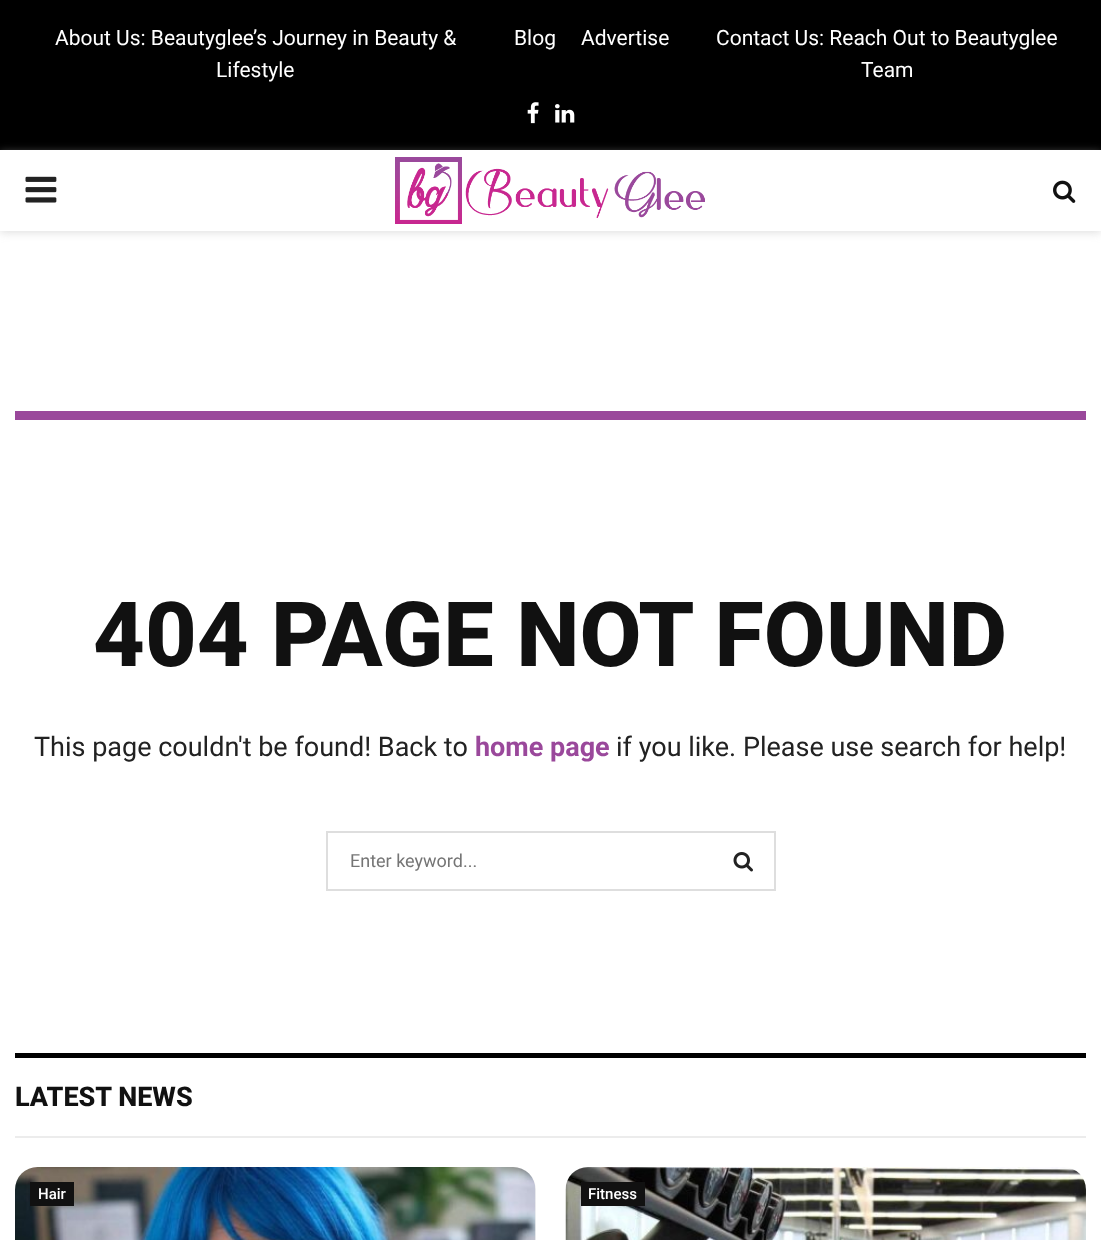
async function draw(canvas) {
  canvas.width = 1101
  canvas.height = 1240
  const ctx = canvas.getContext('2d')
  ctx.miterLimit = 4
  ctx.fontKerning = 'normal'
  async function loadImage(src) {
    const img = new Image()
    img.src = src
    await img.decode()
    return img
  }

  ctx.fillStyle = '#fff'
  ctx.fillRect(0, 0, 1101, 1240)
  ctx.fillStyle = '#000'
  ctx.fillRect(0, 0, 1101, 150)
  ctx.font = '21px Roboto'
  ctx.fillStyle = '#fff'
  ctx.fillText('About Us: Beautyglee’s Journey in Beauty &', 55, 45)
  ctx.fillText('Lifestyle', 216, 77)
  ctx.fillText('Blog', 514, 45)
  ctx.fillText('Advertise', 581, 45)
  ctx.fillText('Contact Us: Reach Out to Beautyglee', 716, 45)
  ctx.fillText('Team', 861, 77)
  ctx.drawImage(await loadImage('image0.png'), 527, 102, 12, 22)
  ctx.drawImage(await loadImage('image1.png'), 555, 104, 20, 19)
  ctx.save()
  ctx.beginPath()
  ctx.moveTo(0, 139)
  ctx.lineTo(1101, 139)
  ctx.lineTo(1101, 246)
  ctx.lineTo(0, 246)
  ctx.closePath()
  ctx.moveTo(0, 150)
  ctx.lineTo(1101, 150)
  ctx.lineTo(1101, 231)
  ctx.lineTo(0, 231)
  ctx.closePath()
  ctx.clip('evenodd')
  ctx.fillStyle = '#bebebe75'
  ctx.filter = 'blur(4px)'
  ctx.beginPath()
  ctx.rect(0, 152, 1101, 81)
  ctx.fill()
  ctx.filter = 'none'
  ctx.restore()
  ctx.drawImage(await loadImage('image2.png'), 25, 176, 32, 27)
  ctx.drawImage(await loadImage('image3.png'), 395, 157, 310, 67)
  ctx.drawImage(await loadImage('image4.png'), 1053, 180, 23, 23)
  ctx.fillStyle = '#9a489b'
  ctx.fillRect(15, 411, 1071, 9)
  ctx.font = '800 90px Roboto'
  ctx.fillStyle = '#111'
  ctx.fillText('404 PAGE NOT FOUND', 93, 666)
  ctx.font = '27px Roboto'
  ctx.fillStyle = '#222'
  ctx.fillText('This page couldn\'t be found! Back to', 34, 756)
  ctx.font = 'bold 27px Roboto'
  ctx.fillStyle = '#9a489b'
  ctx.fillText('home page', 475, 756)
  ctx.font = '27px Roboto'
  ctx.fillStyle = '#222'
  ctx.fillText('if you like. Please use search for help!', 616, 756)
  ctx.strokeStyle = '#dedede'
  ctx.lineWidth = 2
  ctx.strokeRect(327, 832, 448, 58)
  ctx.font = '18px Roboto'
  ctx.fillStyle = '#757575'
  ctx.fillText('Enter keyword...', 350, 867)
  ctx.drawImage(await loadImage('image5.png'), 733, 852, 20, 20)
  ctx.fillStyle = '#ececec'
  ctx.fillRect(15, 1136, 1071, 2)
  ctx.fillStyle = '#000'
  ctx.fillRect(15, 1053, 1071, 5)
  ctx.font = '800 27px Roboto'
  ctx.fillStyle = '#111'
  ctx.fillText('LATEST NEWS', 15, 1106)
  ctx.fillStyle = '#f5f5f5'
  ctx.beginPath()
  ctx.roundRect(15, 1167, 521, 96, 23)
  ctx.fill()
  ctx.drawImage(await loadImage('image6.png'), 15, 1167, 521, 73)
  ctx.fillStyle = '#111'
  ctx.fillRect(30, 1182, 44, 24)
  ctx.font = '500 15px Roboto'
  ctx.fillStyle = '#fff'
  ctx.fillText('Hair', 38, 1199)
  ctx.drawImage(await loadImage('image7.png'), 565, 1167, 521, 73)
  ctx.fillStyle = '#111'
  ctx.fillRect(581, 1182, 64, 24)
  ctx.fillStyle = '#fff'
  ctx.fillText('Fitness', 588, 1199)
}

draw(document.querySelector('canvas'))
